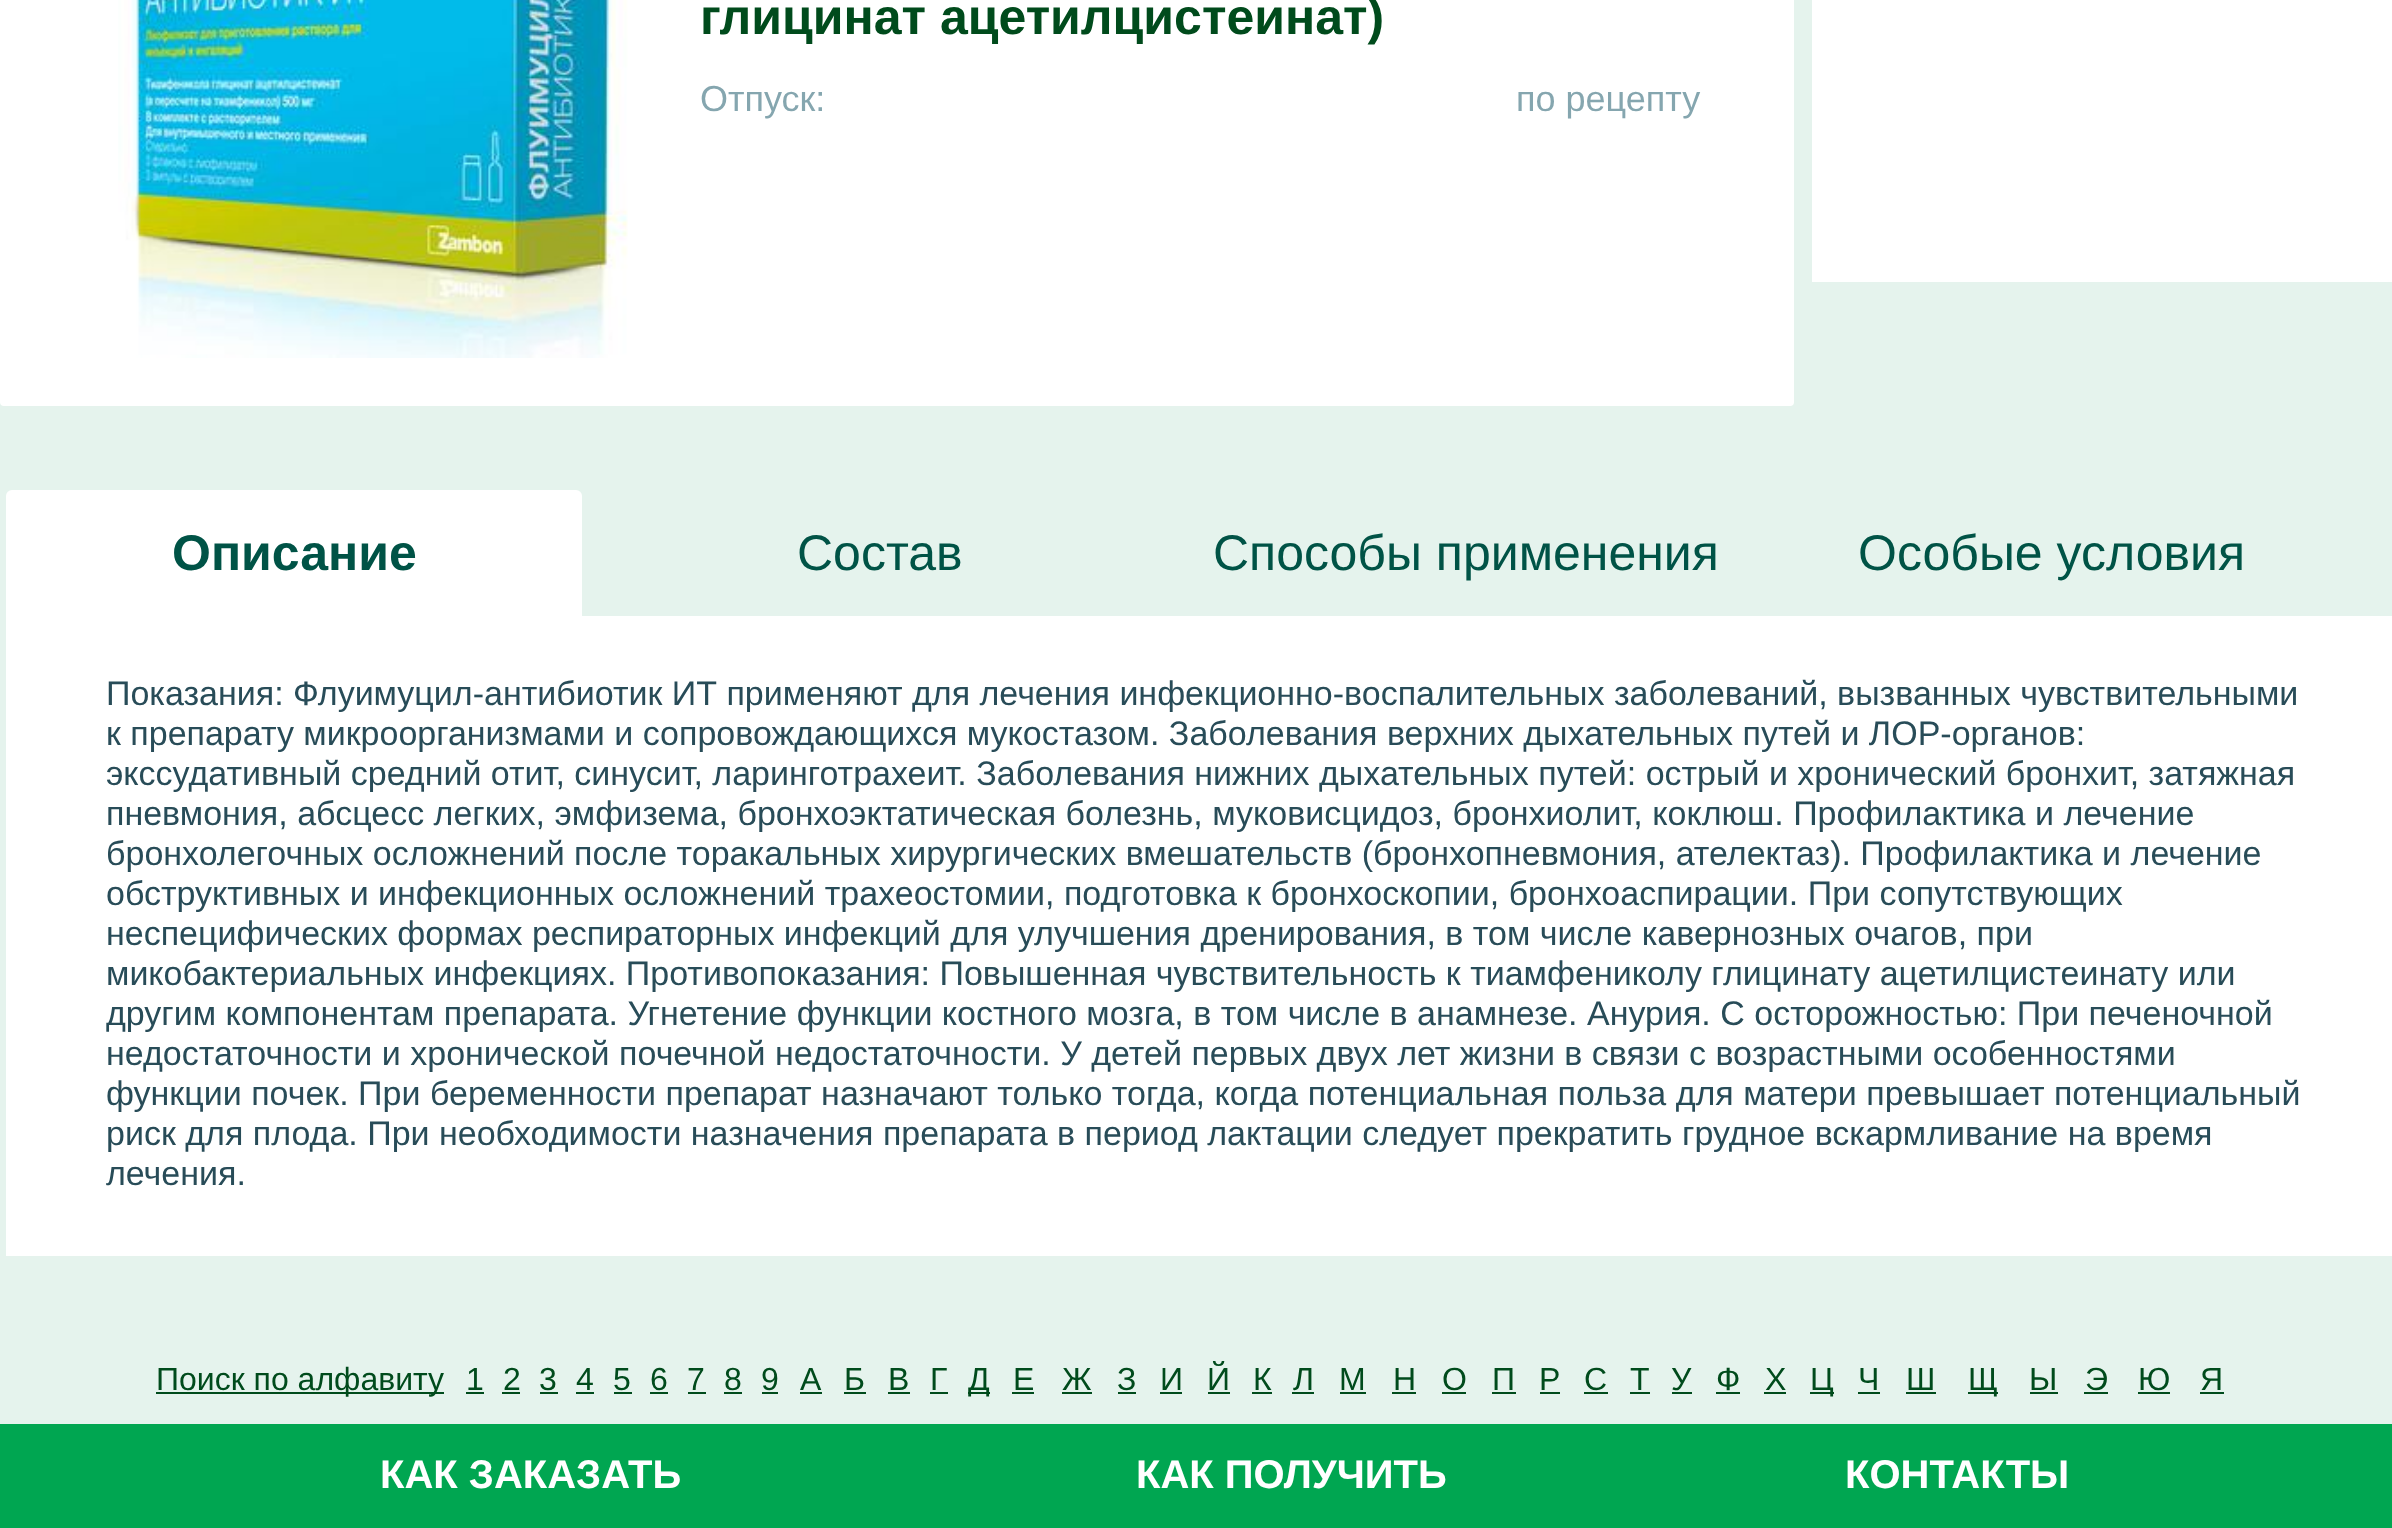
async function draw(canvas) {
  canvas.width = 2392
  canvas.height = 1528
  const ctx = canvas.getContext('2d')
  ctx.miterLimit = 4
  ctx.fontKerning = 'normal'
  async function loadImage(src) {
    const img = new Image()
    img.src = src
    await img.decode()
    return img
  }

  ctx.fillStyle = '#e5f3ed'
  ctx.fillRect(0, 0, 2392, 1528)
  ctx.fillStyle = '#fff'
  ctx.beginPath()
  ctx.roundRect(0, -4, 1794, 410, 4)
  ctx.fill()
  ctx.drawImage(await loadImage('image0.png'), 118, 0, 510, 358)
  ctx.font = 'bold 50px Liberation Sans'
  ctx.fillStyle = '#004b1c'
  ctx.fillText('глицинат ацетилцистеинат)', 700, 34)
  ctx.font = '36px Liberation Sans'
  ctx.fillStyle = '#85a6af'
  ctx.fillText('Отпуск:', 700, 111)
  ctx.fillText('по рецепту', 1516, 111)
  ctx.fillStyle = '#fff'
  ctx.fillRect(1812, 0, 580, 282)
  ctx.fillRect(6, 616, 2386, 640)
  ctx.beginPath()
  ctx.roundRect(6, 490, 576, 128, [6, 6, 0, 0])
  ctx.fill()
  ctx.font = 'bold 50px Liberation Sans'
  ctx.fillStyle = '#005346'
  ctx.fillText('Описание', 172, 570)
  ctx.font = '50px Liberation Sans'
  ctx.fillText('Состав', 797, 570)
  ctx.fillText('Способы применения', 1213, 570)
  ctx.fillText('Особые условия', 1858, 570)
  ctx.font = '34px Liberation Sans'
  ctx.fillStyle = '#284c58'
  ctx.fillText('Показания: Флуимуцил-антибиотик ИТ применяют для лечения инфекционно-воспалительных заболеваний, вызванных чувствительными', 106, 705)
  ctx.fillText('к препарату микроорганизмами и сопровождающихся мукостазом. Заболевания верхних дыхательных путей и ЛОР-органов:', 106, 745)
  ctx.fillText('экссудативный средний отит, синусит, ларинготрахеит. Заболевания нижних дыхательных путей: острый и хронический бронхит, затяжная', 106, 785)
  ctx.fillText('пневмония, абсцесс легких, эмфизема, бронхоэктатическая болезнь, муковисцидоз, бронхиолит, коклюш. Профилактика и лечение', 106, 825)
  ctx.fillText('бронхолегочных осложнений после торакальных хирургических вмешательств (бронхопневмония, ателектаз). Профилактика и лечение', 106, 865)
  ctx.fillText('обструктивных и инфекционных осложнений трахеостомии, подготовка к бронхоскопии, бронхоаспирации. При сопутствующих', 106, 905)
  ctx.fillText('неспецифических формах респираторных инфекций для улучшения дренирования, в том числе кавернозных очагов, при', 106, 945)
  ctx.fillText('микобактериальных инфекциях. Противопоказания: Повышенная чувствительность к тиамфениколу глицинату ацетилцистеинату или', 106, 985)
  ctx.fillText('другим компонентам препарата. Угнетение функции костного мозга, в том числе в анамнезе. Анурия. С осторожностью: При печеночной', 106, 1025)
  ctx.fillText('недостаточности и хронической почечной недостаточности. У детей первых двух лет жизни в связи с возрастными особенностями', 106, 1065)
  ctx.fillText('функции почек. При беременности препарат назначают только тогда, когда потенциальная польза для матери превышает потенциальный', 106, 1105)
  ctx.fillText('риск для плода. При необходимости назначения препарата в период лактации следует прекратить грудное вскармливание на время', 106, 1145)
  ctx.fillText('лечения.', 106, 1185)
  ctx.fillStyle = '#004b1c'
  ctx.fillRect(156, 1392, 288, 2)
  ctx.font = '32px Liberation Sans'
  ctx.fillText('Поиск по алфавиту', 156, 1390)
  ctx.fillText('1', 466, 1390)
  ctx.fillRect(466, 1392, 18, 2)
  ctx.fillText('2', 503, 1390)
  ctx.fillRect(502, 1392, 18, 2)
  ctx.fillText('3', 539, 1390)
  ctx.fillRect(540, 1392, 18, 2)
  ctx.fillText('4', 576, 1390)
  ctx.fillRect(576, 1392, 18, 2)
  ctx.fillText('5', 613, 1390)
  ctx.fillRect(614, 1392, 18, 2)
  ctx.fillText('6', 650, 1390)
  ctx.fillRect(650, 1392, 18, 2)
  ctx.fillText('7', 687, 1390)
  ctx.fillRect(688, 1392, 18, 2)
  ctx.fillText('8', 724, 1390)
  ctx.fillRect(724, 1392, 18, 2)
  ctx.fillText('9', 761, 1390)
  ctx.fillRect(762, 1392, 16, 2)
  ctx.fillText('А', 800, 1390)
  ctx.fillRect(800, 1392, 22, 2)
  ctx.fillText('Б', 844, 1390)
  ctx.fillRect(844, 1392, 22, 2)
  ctx.fillText('В', 888, 1390)
  ctx.fillRect(888, 1392, 22, 2)
  ctx.fillText('Г', 930, 1390)
  ctx.fillRect(930, 1392, 18, 2)
  ctx.fillRect(968, 1392, 22, 2)
  ctx.fillText('Д', 968, 1390)
  ctx.fillText('Е', 1013, 1390)
  ctx.fillRect(1012, 1392, 22, 2)
  ctx.fillText('Ж', 1062, 1390)
  ctx.fillRect(1062, 1392, 30, 2)
  ctx.fillText('З', 1117, 1390)
  ctx.fillRect(1118, 1392, 18, 2)
  ctx.fillText('И', 1160, 1390)
  ctx.fillRect(1160, 1392, 22, 2)
  ctx.fillText('Й', 1207, 1390)
  ctx.fillRect(1208, 1392, 22, 2)
  ctx.fillText('К', 1253, 1390)
  ctx.fillRect(1252, 1392, 20, 2)
  ctx.fillText('Л', 1293, 1390)
  ctx.fillRect(1292, 1392, 22, 2)
  ctx.fillText('М', 1339, 1390)
  ctx.fillRect(1340, 1392, 26, 2)
  ctx.fillText('Н', 1393, 1390)
  ctx.fillRect(1392, 1392, 24, 2)
  ctx.fillText('О', 1442, 1390)
  ctx.fillRect(1442, 1392, 24, 2)
  ctx.fillText('П', 1492, 1390)
  ctx.fillRect(1492, 1392, 24, 2)
  ctx.fillText('Р', 1539, 1390)
  ctx.fillRect(1540, 1392, 20, 2)
  ctx.fillText('С', 1584, 1390)
  ctx.fillRect(1584, 1392, 24, 2)
  ctx.fillText('Т', 1630, 1390)
  ctx.fillRect(1630, 1392, 20, 2)
  ctx.fillText('У', 1671, 1390)
  ctx.fillRect(1672, 1392, 20, 2)
  ctx.fillText('Ф', 1716, 1390)
  ctx.fillRect(1716, 1392, 24, 2)
  ctx.fillText('Х', 1765, 1390)
  ctx.fillRect(1764, 1392, 22, 2)
  ctx.fillRect(1810, 1392, 24, 2)
  ctx.fillText('Ц', 1810, 1390)
  ctx.fillText('Ч', 1858, 1390)
  ctx.fillRect(1858, 1392, 22, 2)
  ctx.fillText('Ш', 1906, 1390)
  ctx.fillRect(1906, 1392, 30, 2)
  ctx.fillRect(1968, 1392, 30, 2)
  ctx.fillText('Щ', 1968, 1390)
  ctx.fillText('Ы', 2029, 1390)
  ctx.fillRect(2030, 1392, 28, 2)
  ctx.fillText('Э', 2085, 1390)
  ctx.fillRect(2084, 1392, 24, 2)
  ctx.fillText('Ю', 2138, 1390)
  ctx.fillRect(2138, 1392, 32, 2)
  ctx.fillText('Я', 2200, 1390)
  ctx.fillRect(2200, 1392, 24, 2)
  ctx.fillStyle = '#00a651'
  ctx.fillRect(0, 1424, 2392, 104)
  ctx.font = 'bold 40px Liberation Sans'
  ctx.fillStyle = '#fff'
  ctx.fillText('КАК ЗАКАЗАТЬ', 380, 1488)
  ctx.fillText('КАК ПОЛУЧИТЬ', 1136, 1488)
  ctx.fillText('КОНТАКТЫ', 1845, 1488)
}

draw(document.querySelector('canvas'))
